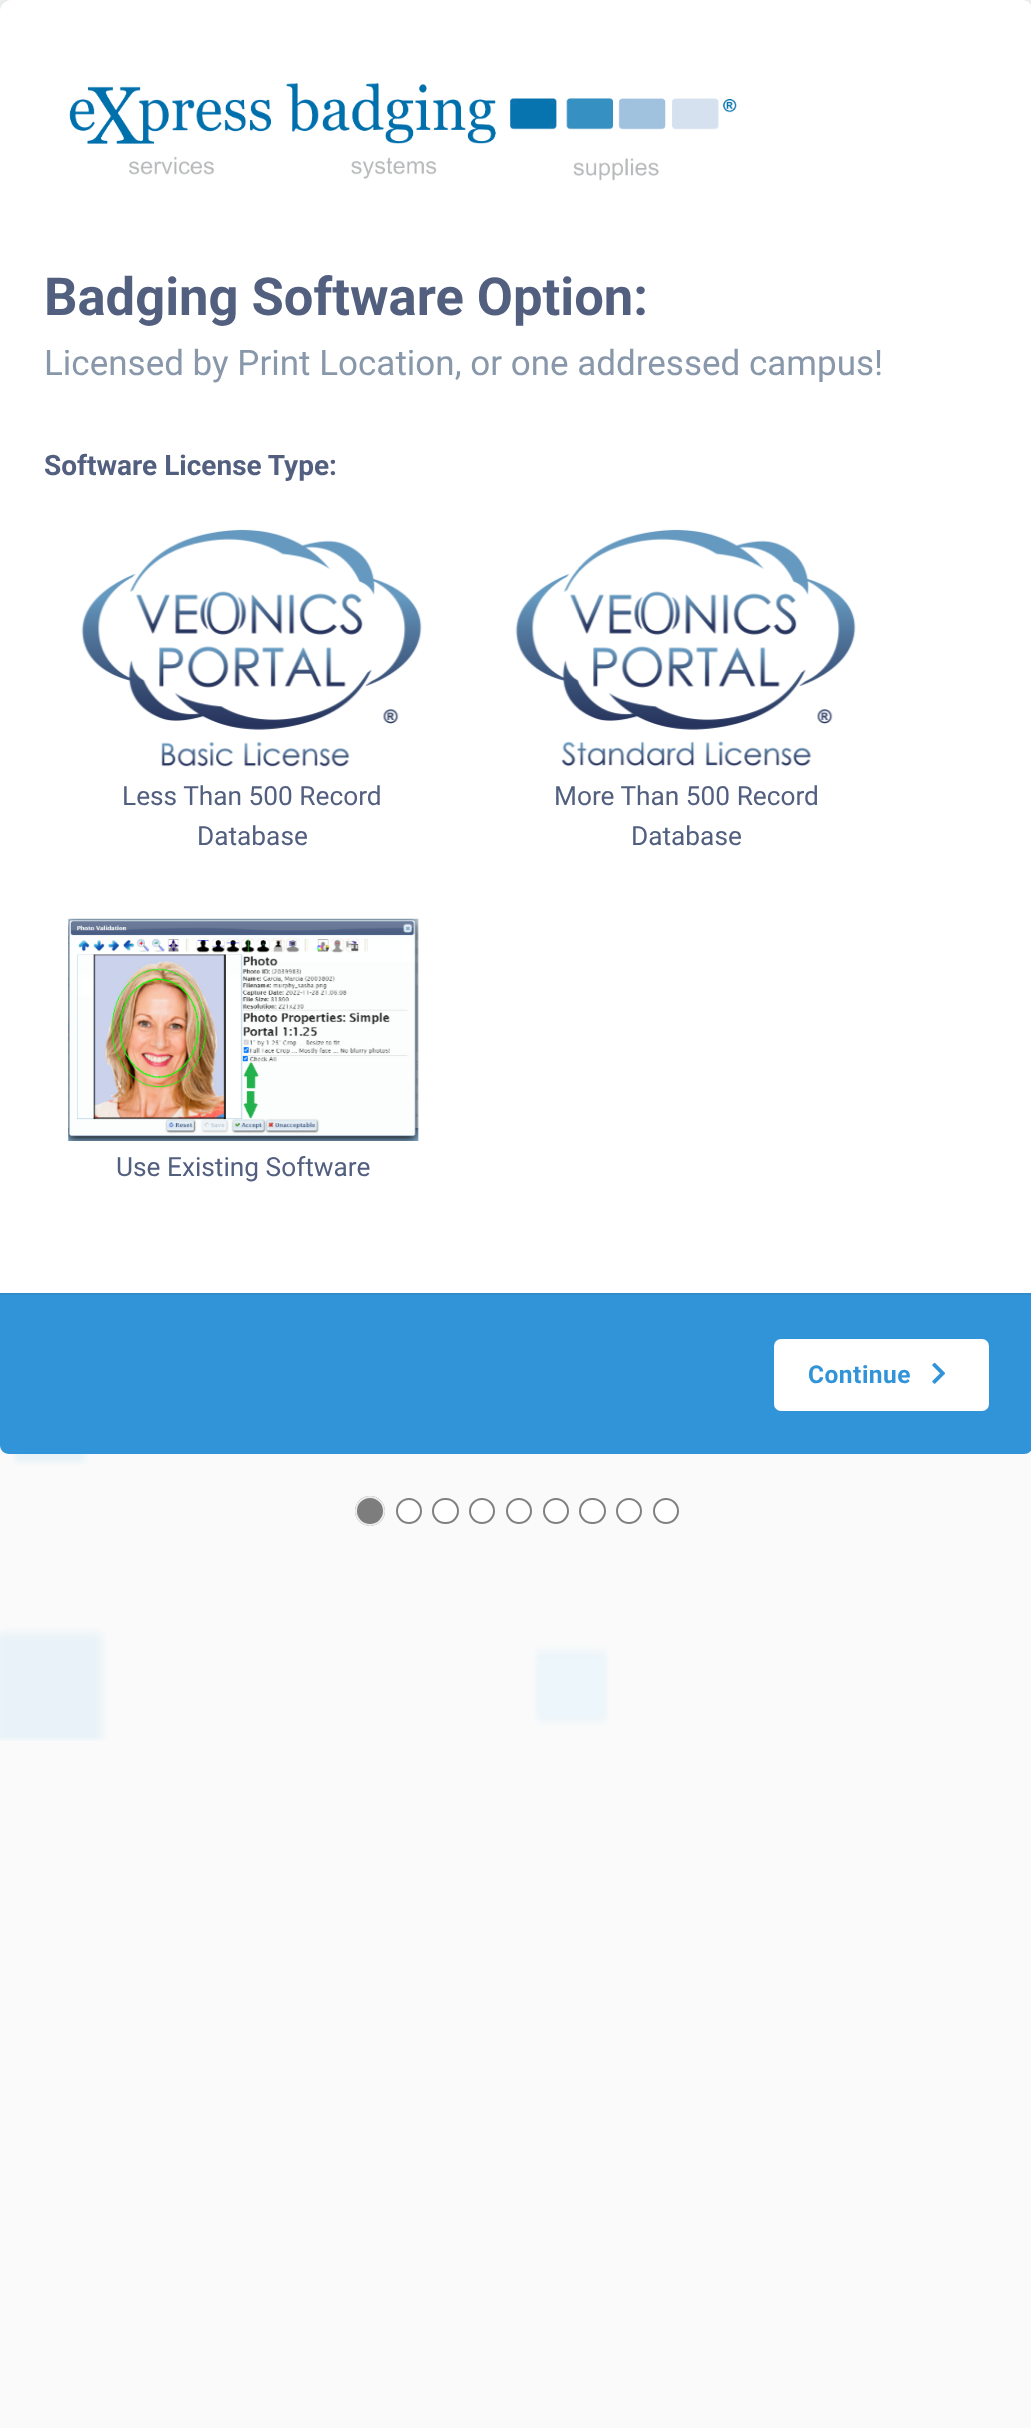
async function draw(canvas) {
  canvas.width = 1031
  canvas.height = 2428
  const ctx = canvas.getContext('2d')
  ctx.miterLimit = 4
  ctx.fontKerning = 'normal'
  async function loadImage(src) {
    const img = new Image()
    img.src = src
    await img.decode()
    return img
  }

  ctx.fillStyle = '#fafafa'
  ctx.fillRect(0, 0, 1031, 2428)
  ctx.drawImage(await loadImage('image0.png'), 0, 1454, 609, 287)
  ctx.fillStyle = '#8898aa59'
  ctx.filter = 'blur(9.5px)'
  ctx.beginPath()
  ctx.roundRect(-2, -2, 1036, 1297, 12)
  ctx.fill()
  ctx.filter = 'none'
  ctx.fillStyle = '#fff'
  ctx.beginPath()
  ctx.moveTo(11, 0)
  ctx.lineTo(1022, 0)
  ctx.bezierCurveTo(1028, 0, 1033, 5, 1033, 11)
  ctx.lineTo(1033, 1293)
  ctx.lineTo(0, 1293)
  ctx.lineTo(0, 11)
  ctx.bezierCurveTo(0, 5, 5, 0, 11, 0)
  ctx.closePath()
  ctx.fill()
  ctx.drawImage(await loadImage('image1.png'), 69, 82, 668, 99)
  ctx.font = 'bold 52.5px Roboto'
  ctx.fillStyle = '#525f7f'
  ctx.fillText('Badging Software Option:', 44, 315)
  ctx.font = '35px Roboto'
  ctx.fillStyle = '#8898aa'
  ctx.fillText('Licensed by Print Location, or one addressed campus!', 44, 375)
  ctx.font = 'bold 28px Roboto'
  ctx.fillStyle = '#525f7f'
  ctx.fillText('Software License Type:', 44, 475)
  ctx.drawImage(await loadImage('image2.png'), 81, 529, 341, 238)
  ctx.font = '26.25px Roboto'
  ctx.fillText('Less Than 500 Record', 122, 805)
  ctx.fillText('Database', 197, 845)
  ctx.drawImage(await loadImage('image3.png'), 515, 529, 341, 238)
  ctx.fillText('More Than 500 Record', 554, 805)
  ctx.fillText('Database', 631, 845)
  ctx.drawImage(await loadImage('image4.png'), 68, 918, 351, 223)
  ctx.fillText('Use Existing Software', 116, 1176)
  ctx.fillStyle = '#3194d8'
  ctx.beginPath()
  ctx.moveTo(0, 1293)
  ctx.lineTo(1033, 1293)
  ctx.lineTo(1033, 1445)
  ctx.bezierCurveTo(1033, 1450, 1029, 1454, 1024, 1454)
  ctx.lineTo(9, 1454)
  ctx.bezierCurveTo(4, 1454, 0, 1450, 0, 1445)
  ctx.closePath()
  ctx.fill()
  ctx.fillStyle = '#2f8dcd'
  ctx.fillRect(0, 1293, 1031, 2)
  ctx.fillStyle = '#fff'
  ctx.beginPath()
  ctx.roundRect(774, 1339, 215, 72, 7)
  ctx.fill()
  ctx.letterSpacing = '0.5px'
  ctx.font = 'bold 24.5px Roboto'
  ctx.fillStyle = '#3194d8'
  ctx.fillText('Continue', 808, 1383)
  ctx.drawImage(await loadImage('image5.png'), 932, 1362, 13, 22)
  ctx.fillStyle = '#7d7d7d'
  ctx.beginPath()
  ctx.arc(370, 1511, 15, 0, 2 * Math.PI)
  ctx.fill()
  ctx.beginPath()
  ctx.arc(370, 1511, 14, 0, 2 * Math.PI)
  ctx.strokeStyle = '#ffffffd9'
  ctx.lineWidth = 2
  ctx.stroke()
  ctx.fillStyle = '#fff'
  ctx.beginPath()
  ctx.arc(409, 1511, 12, 0, 2 * Math.PI)
  ctx.fill()
  ctx.strokeStyle = '#808080'
  ctx.stroke()
  ctx.beginPath()
  ctx.roundRect(433, 1499, 25, 24, 12)
  ctx.fill()
  ctx.stroke()
  ctx.beginPath()
  ctx.arc(482, 1511, 12, 0, 2 * Math.PI)
  ctx.fill()
  ctx.stroke()
  ctx.beginPath()
  ctx.arc(519, 1511, 12, 0, 2 * Math.PI)
  ctx.fill()
  ctx.stroke()
  ctx.beginPath()
  ctx.arc(556, 1511, 12, 0, 2 * Math.PI)
  ctx.fill()
  ctx.stroke()
  ctx.beginPath()
  ctx.roundRect(580, 1499, 25, 24, 12)
  ctx.fill()
  ctx.stroke()
  ctx.beginPath()
  ctx.arc(629, 1511, 12, 0, 2 * Math.PI)
  ctx.fill()
  ctx.stroke()
  ctx.beginPath()
  ctx.arc(666, 1511, 12, 0, 2 * Math.PI)
  ctx.fill()
  ctx.stroke()
}

draw(document.querySelector('canvas'))
